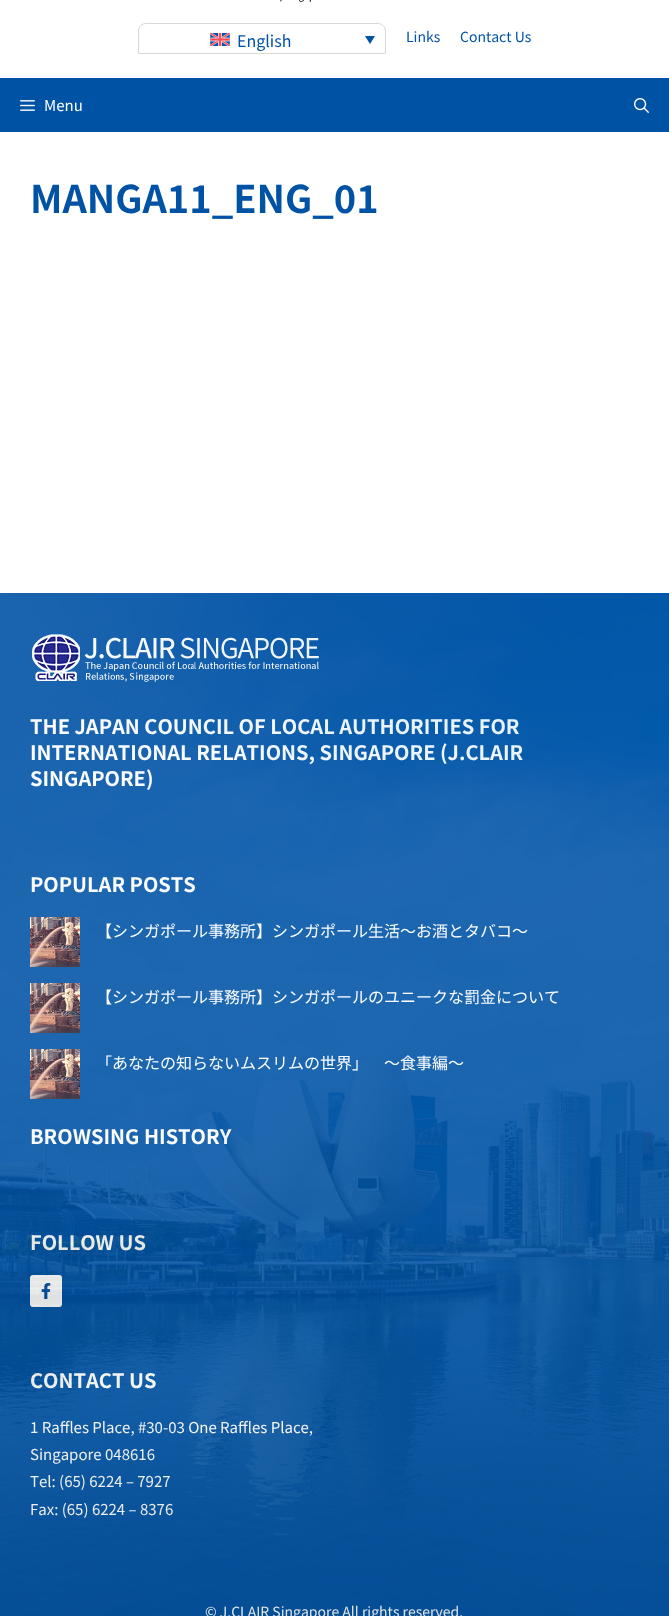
async function draw(canvas) {
  canvas.width = 669
  canvas.height = 1616
  const ctx = canvas.getContext('2d')
  ctx.miterLimit = 4
  ctx.fontKerning = 'none'
  async function loadImage(src) {
    const img = new Image()
    img.src = src
    await img.decode()
    return img
  }

  ctx.fillStyle = '#fff'
  ctx.fillRect(0, 0, 669, 1616)
  ctx.drawImage(await loadImage('image0.png'), 280, 0, 31, 2)
  ctx.beginPath()
  ctx.roundRect(138.5, 23.5, 247, 30, [7.5, 7.5, 0, 0])
  ctx.strokeStyle = '#d8d8d8'
  ctx.stroke()
  ctx.drawImage(await loadImage('image1.png'), 210, 33, 20, 13)
  ctx.font = '16px Noto Sans JP'
  ctx.fillStyle = '#0052a5'
  ctx.fillText('English', 237, 47)
  ctx.fillStyle = '#0052a3'
  ctx.beginPath()
  ctx.moveTo(365, 36)
  ctx.lineTo(375, 36)
  ctx.lineTo(370, 44)
  ctx.closePath()
  ctx.fill()
  ctx.font = '14px Noto Sans JP'
  ctx.fillStyle = '#0052a5'
  ctx.fillText('Links', 406, 42)
  ctx.fillText('Contact Us', 460, 42)
  ctx.fillRect(0, 78, 669, 54)
  ctx.drawImage(await loadImage('image2.png'), 20, 100, 15, 11)
  ctx.font = '15px Noto Sans JP'
  ctx.fillStyle = '#fff'
  ctx.fillText('Menu', 44, 111)
  ctx.drawImage(await loadImage('image3.png'), 634, 98, 15, 15)
  ctx.font = 'bold 38px Noto Sans JP'
  ctx.fillStyle = '#0052a5'
  ctx.fillText('MANGA11_ENG_01', 30, 213)
  ctx.fillRect(0, 593, 669, 1023)
  ctx.drawImage(await loadImage('image5.png'), 32, 634, 287, 48)
  ctx.font = 'bold 20px Noto Sans JP'
  ctx.fillStyle = '#fff'
  ctx.fillText('THE JAPAN COUNCIL OF LOCAL AUTHORITIES FOR', 30, 734)
  ctx.fillText('INTERNATIONAL RELATIONS, SINGAPORE (J.CLAIR', 30, 760)
  ctx.fillText('SINGAPORE)', 30, 786)
  ctx.fillText('POPULAR POSTS', 30, 892)
  ctx.drawImage(await loadImage('image6.png'), 30, 917, 50, 50)
  ctx.font = '16px Noto Sans JP'
  ctx.fillText('【シンガポール事務所】シンガポール生活～お酒とタバコ～', 96, 937)
  ctx.drawImage(await loadImage('image6.png'), 30, 983, 50, 50)
  ctx.fillText('【シンガポール事務所】シンガポールのユニークな罰金について', 96, 1003)
  ctx.drawImage(await loadImage('image6.png'), 30, 1049, 50, 50)
  ctx.fillText('「あなたの知らないムスリムの世界」', 96, 1069)
  ctx.fillText('　～食事編～', 368, 1069)
  ctx.font = 'bold 20px Noto Sans JP'
  ctx.fillText('BROWSING HISTORY', 30, 1144)
  ctx.fillText('FOLLOW US', 30, 1250)
  ctx.beginPath()
  ctx.roundRect(30, 1275, 32, 32, 3)
  ctx.fill()
  ctx.drawImage(await loadImage('image7.png'), 41, 1283, 10, 16)
  ctx.fillText('CONTACT US', 30, 1388)
  ctx.font = '15px Noto Sans JP'
  ctx.fillText('1 Raffles Place, #30-03 One Raffles Place,', 30, 1433)
  ctx.fillText('Singapore 048616', 30, 1460)
  ctx.fillText('Tel: (65) 6224 – 7927', 30, 1487)
  ctx.fillText('Fax: (65) 6224 – 8376', 30, 1515)
  ctx.font = '14px Noto Sans JP'
  ctx.fillText('© J.CLAIR Singapore All rights reserved.', 205, 1617)
  ctx.drawImage(await loadImage('image4.png'), 0, 593, 669, 1023)
}

draw(document.querySelector('canvas'))
